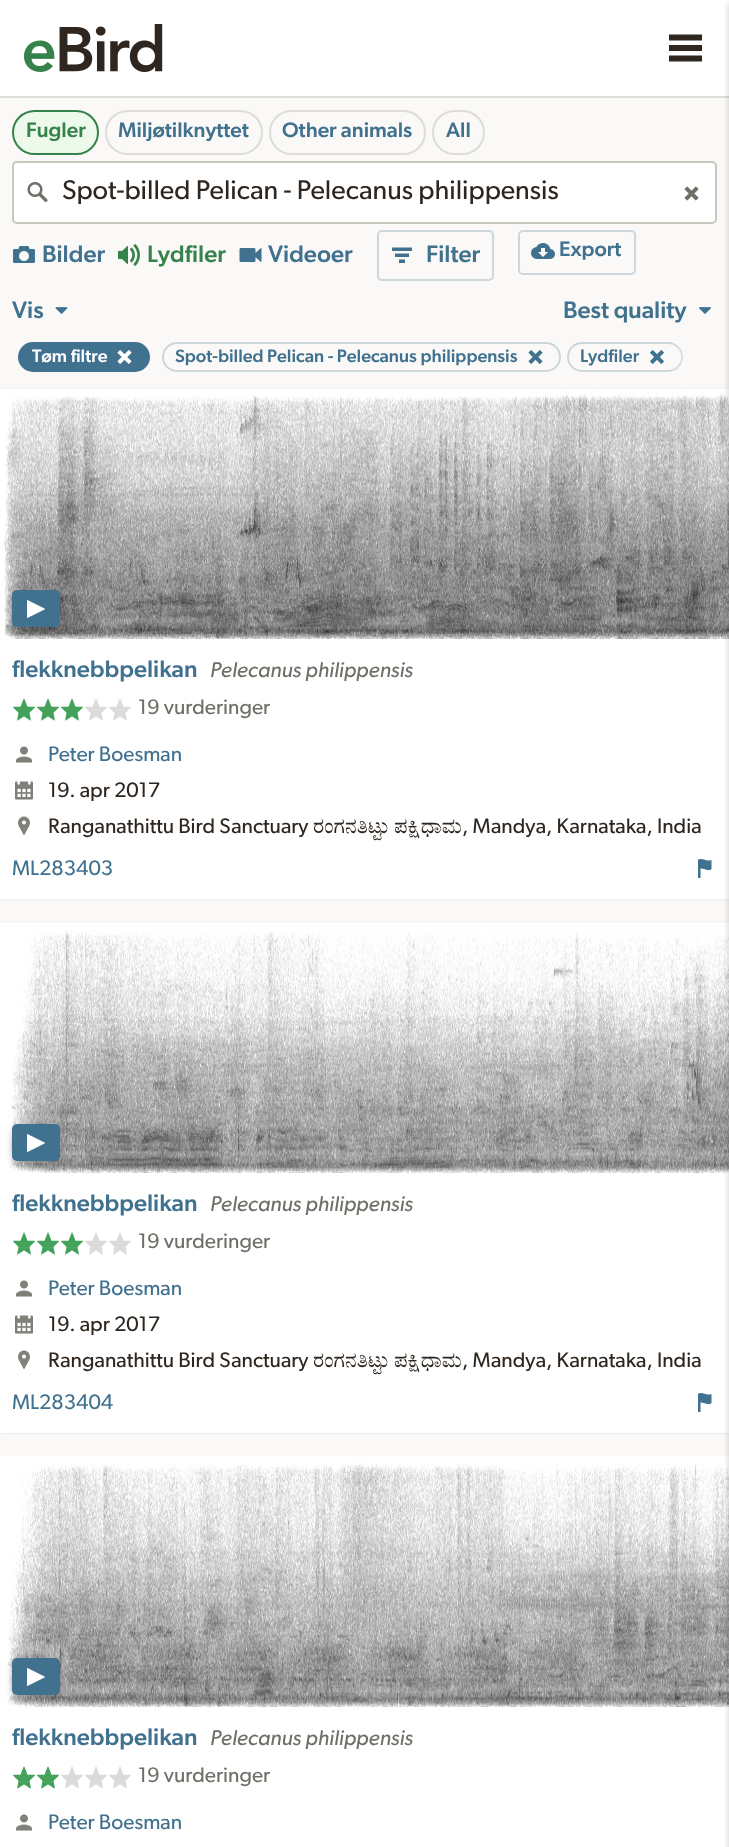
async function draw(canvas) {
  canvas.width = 729
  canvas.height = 1847
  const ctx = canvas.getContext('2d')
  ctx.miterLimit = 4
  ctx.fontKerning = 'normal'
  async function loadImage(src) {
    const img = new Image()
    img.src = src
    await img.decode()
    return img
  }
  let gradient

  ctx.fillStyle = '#fff'
  ctx.fillRect(0, 0, 729, 1847)
  ctx.fillStyle = '#dbdbd9'
  ctx.fillRect(0, 96, 729, 2)
  ctx.drawImage(await loadImage('image0.png'), 24, 24, 139, 48)
  ctx.fillStyle = '#2e261f'
  ctx.beginPath()
  ctx.moveTo(669, 34.5)
  ctx.lineTo(702, 34.5)
  ctx.lineTo(702, 40.5)
  ctx.lineTo(669, 40.5)
  ctx.closePath()
  ctx.moveTo(669, 45)
  ctx.lineTo(702, 45)
  ctx.lineTo(702, 51)
  ctx.lineTo(669, 51)
  ctx.closePath()
  ctx.moveTo(669, 55.5)
  ctx.lineTo(702, 55.5)
  ctx.lineTo(702, 61.5)
  ctx.lineTo(669, 61.5)
  ctx.closePath()
  ctx.fill('evenodd')
  ctx.fillStyle = '#faf9f7'
  ctx.fillRect(0, 98, 729, 291)
  ctx.fillRect(0, 899, 729, 558)
  ctx.fillStyle = '#0000001a'
  ctx.filter = 'blur(1.5px)'
  ctx.beginPath()
  ctx.rect(0, 389, 729, 510)
  ctx.fill()
  ctx.filter = 'none'
  ctx.drawImage(await loadImage('image13.png'), 0, 388, 729, 251)
  ctx.fillStyle = '#fff'
  ctx.fillRect(0, 639, 729, 260)
  ctx.fillStyle = '#0000001a'
  ctx.filter = 'blur(1.5px)'
  ctx.beginPath()
  ctx.rect(0, 923, 729, 510)
  ctx.fill()
  ctx.filter = 'none'
  ctx.drawImage(await loadImage('image21.png'), 0, 922, 729, 251)
  ctx.fillStyle = '#fff'
  ctx.fillRect(0, 1173, 729, 260)
  ctx.drawImage(await loadImage('image22.png'), 0, 1456, 729, 251)
  ctx.fillStyle = '#00000033'
  ctx.filter = 'blur(3px)'
  ctx.beginPath()
  ctx.rect(729, 3, 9, 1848)
  ctx.fill()
  ctx.filter = 'none'
  ctx.fillStyle = '#ecf9eb'
  ctx.beginPath()
  ctx.roundRect(13, 111, 85, 43, 21.5)
  ctx.fill()
  ctx.strokeStyle = '#36824b'
  ctx.lineWidth = 2
  ctx.stroke()
  ctx.font = '500 21.1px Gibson'
  ctx.fillStyle = '#36824b'
  ctx.fillText('Fugler', 26, 137)
  ctx.beginPath()
  ctx.roundRect(106, 111, 156, 43, 21.5)
  ctx.strokeStyle = '#dddcd5'
  ctx.stroke()
  ctx.fillStyle = '#40718f'
  ctx.fillText('Miljøtilknyttet', 118, 137)
  ctx.beginPath()
  ctx.roundRect(270, 111, 155, 43, 21.5)
  ctx.stroke()
  ctx.fillText('Other animals', 282, 137)
  ctx.beginPath()
  ctx.roundRect(433, 111, 51, 43, 21.5)
  ctx.stroke()
  ctx.fillText('All', 446, 137)
  ctx.fillStyle = '#fff'
  ctx.beginPath()
  ctx.roundRect(13, 162, 703, 61, 4)
  ctx.fill()
  ctx.strokeStyle = '#c8c7c0'
  ctx.stroke()
  ctx.drawImage(await loadImage('image1.png'), 27, 182, 21, 20)
  ctx.font = '27.1px Gibson'
  ctx.fillStyle = '#2e261f'
  ctx.fillText('Spot-billed Pelican - Pelecanus philippensis', 62, 199)
  ctx.drawImage(await loadImage('image2.png'), 684, 186, 15, 15)
  ctx.drawImage(await loadImage('image3.png'), 13, 246, 22, 17)
  ctx.font = '500 24px Gibson'
  ctx.fillStyle = '#40718f'
  ctx.fillText('Bilder', 42, 262)
  ctx.drawImage(await loadImage('image4.png'), 118, 244, 22, 22)
  ctx.fillStyle = '#36824b'
  ctx.fillText('Lydfiler', 147, 262)
  ctx.drawImage(await loadImage('image5.png'), 239, 248, 23, 15)
  ctx.fillStyle = '#40718f'
  ctx.fillText('Videoer', 268, 262)
  ctx.beginPath()
  ctx.roundRect(378, 231, 115, 49, 4)
  ctx.strokeStyle = '#ccd7dd'
  ctx.stroke()
  ctx.drawImage(await loadImage('image6.png'), 392, 247, 20, 16)
  ctx.fillText('Filter', 426, 262)
  ctx.beginPath()
  ctx.roundRect(519, 231, 116, 43, 4)
  ctx.stroke()
  ctx.drawImage(await loadImage('image7.png'), 531, 243, 24, 16)
  ctx.font = '500 21.1px Gibson'
  ctx.fillText('Export', 559, 256)
  ctx.font = '500 24px Gibson'
  ctx.fillText('Vis', 12, 318)
  ctx.drawImage(await loadImage('image8.png'), 55, 307, 13, 7)
  ctx.fillText('Best quality', 563, 318)
  ctx.drawImage(await loadImage('image9.png'), 699, 307, 12, 7)
  ctx.beginPath()
  ctx.roundRect(18, 342, 132, 30, 15)
  ctx.fill()
  ctx.font = '500 18px Gibson'
  ctx.fillStyle = '#fff'
  ctx.fillText('Tøm filtre', 32, 362)
  ctx.drawImage(await loadImage('image10.png'), 117, 350, 15, 14)
  ctx.beginPath()
  ctx.roundRect(163, 343, 397, 28, 14)
  ctx.stroke()
  ctx.fillStyle = '#40718f'
  ctx.fillText('Spot-billed Pelican - Pelecanus philippensis', 175, 362)
  ctx.drawImage(await loadImage('image11.png'), 528, 350, 15, 14)
  ctx.beginPath()
  ctx.roundRect(568, 343, 114, 28, 14)
  ctx.stroke()
  ctx.fillText('Lydfiler', 580, 362)
  ctx.drawImage(await loadImage('image12.png'), 650, 350, 14, 14)
  gradient = ctx.createLinearGradient(717, 356, 669, 356)
  gradient.addColorStop(0, '#faf9f7')
  gradient.addColorStop(1, '#faf9f700')
  ctx.fillStyle = gradient
  ctx.fillRect(671, 343, 12, 28)
  ctx.fillStyle = '#00000033'
  ctx.filter = 'blur(3px)'
  ctx.beginPath()
  ctx.roundRect(12, 593, 48, 37, 5)
  ctx.fill()
  ctx.filter = 'none'
  ctx.fillStyle = '#40718f'
  ctx.beginPath()
  ctx.roundRect(12, 590, 48, 37, 5)
  ctx.fill()
  ctx.drawImage(await loadImage('image14.png'), 27, 600, 18, 18)
  ctx.font = '500 24px Gibson'
  ctx.fillText('flekknebbpelikan', 12, 677)
  ctx.font = 'italic 21.5px Gibson'
  ctx.fillStyle = '#6f6e67'
  ctx.fillText('Pelecanus philippensis', 210, 677)
  ctx.drawImage(await loadImage('image15.png'), 13, 698, 22, 23)
  ctx.drawImage(await loadImage('image15.png'), 37, 698, 22, 23)
  ctx.drawImage(await loadImage('image15.png'), 61, 698, 22, 23)
  ctx.drawImage(await loadImage('image16.png'), 85, 698, 22, 23)
  ctx.drawImage(await loadImage('image16.png'), 109, 698, 22, 23)
  ctx.font = '21.1px Gibson'
  ctx.fillText('19 vurderinger', 138, 714)
  ctx.drawImage(await loadImage('image17.png'), 16, 746, 16, 17)
  ctx.fillStyle = '#40718f'
  ctx.fillText('Peter Boesman', 48, 761)
  ctx.drawImage(await loadImage('image18.png'), 15, 781, 18, 19)
  ctx.fillStyle = '#2e261f'
  ctx.fillText('19. apr 2017', 48, 797)
  ctx.drawImage(await loadImage('image19.png'), 18, 816, 12, 20)
  ctx.fillText('Ranganathittu Bird Sanctuary', 48, 833)
  ctx.font = '21.1px FreeSerif'
  ctx.fillText('ರಂಗನತಿಟ್ಟು', 313, 833)
  ctx.fillText('ಪಕ್ಷಿಧಾಮ', 394, 833)
  ctx.font = '21.1px Gibson'
  ctx.fillText(', Mandya, Karnataka, India', 462, 833)
  ctx.fillStyle = '#40718f'
  ctx.fillText('ML283403', 12, 875)
  ctx.drawImage(await loadImage('image20.png'), 698, 859, 14, 19)
  ctx.fillStyle = '#00000033'
  ctx.filter = 'blur(3px)'
  ctx.beginPath()
  ctx.roundRect(12, 1127, 48, 37, 5)
  ctx.fill()
  ctx.filter = 'none'
  ctx.fillStyle = '#40718f'
  ctx.beginPath()
  ctx.roundRect(12, 1124, 48, 37, 5)
  ctx.fill()
  ctx.drawImage(await loadImage('image14.png'), 27, 1134, 18, 18)
  ctx.font = '500 24px Gibson'
  ctx.fillText('flekknebbpelikan', 12, 1211)
  ctx.font = 'italic 21.5px Gibson'
  ctx.fillStyle = '#6f6e67'
  ctx.fillText('Pelecanus philippensis', 210, 1211)
  ctx.drawImage(await loadImage('image15.png'), 13, 1232, 22, 23)
  ctx.drawImage(await loadImage('image15.png'), 37, 1232, 22, 23)
  ctx.drawImage(await loadImage('image15.png'), 61, 1232, 22, 23)
  ctx.drawImage(await loadImage('image16.png'), 85, 1232, 22, 23)
  ctx.drawImage(await loadImage('image16.png'), 109, 1232, 22, 23)
  ctx.font = '21.1px Gibson'
  ctx.fillText('19 vurderinger', 138, 1248)
  ctx.drawImage(await loadImage('image17.png'), 16, 1280, 16, 17)
  ctx.fillStyle = '#40718f'
  ctx.fillText('Peter Boesman', 48, 1295)
  ctx.drawImage(await loadImage('image18.png'), 15, 1315, 18, 19)
  ctx.fillStyle = '#2e261f'
  ctx.fillText('19. apr 2017', 48, 1331)
  ctx.drawImage(await loadImage('image19.png'), 18, 1350, 12, 20)
  ctx.fillText('Ranganathittu Bird Sanctuary', 48, 1367)
  ctx.font = '21.1px FreeSerif'
  ctx.fillText('ರಂಗನತಿಟ್ಟು', 313, 1367)
  ctx.fillText('ಪಕ್ಷಿಧಾಮ', 394, 1367)
  ctx.font = '21.1px Gibson'
  ctx.fillText(', Mandya, Karnataka, India', 462, 1367)
  ctx.fillStyle = '#40718f'
  ctx.fillText('ML283404', 12, 1409)
  ctx.drawImage(await loadImage('image20.png'), 698, 1393, 14, 19)
  ctx.fillStyle = '#00000033'
  ctx.filter = 'blur(3px)'
  ctx.beginPath()
  ctx.roundRect(12, 1661, 48, 37, 5)
  ctx.fill()
  ctx.filter = 'none'
  ctx.fillStyle = '#40718f'
  ctx.beginPath()
  ctx.roundRect(12, 1658, 48, 37, 5)
  ctx.fill()
  ctx.drawImage(await loadImage('image14.png'), 27, 1668, 18, 18)
  ctx.font = '500 24px Gibson'
  ctx.fillText('flekknebbpelikan', 12, 1745)
  ctx.font = 'italic 21.5px Gibson'
  ctx.fillStyle = '#6f6e67'
  ctx.fillText('Pelecanus philippensis', 210, 1745)
  ctx.drawImage(await loadImage('image15.png'), 13, 1766, 22, 23)
  ctx.drawImage(await loadImage('image15.png'), 37, 1766, 22, 23)
  ctx.drawImage(await loadImage('image16.png'), 61, 1766, 22, 23)
  ctx.drawImage(await loadImage('image16.png'), 85, 1766, 22, 23)
  ctx.drawImage(await loadImage('image16.png'), 109, 1766, 22, 23)
  ctx.font = '21.1px Gibson'
  ctx.fillText('19 vurderinger', 138, 1782)
  ctx.drawImage(await loadImage('image17.png'), 16, 1814, 16, 17)
  ctx.fillStyle = '#40718f'
  ctx.fillText('Peter Boesman', 48, 1829)
}

draw(document.querySelector('canvas'))
